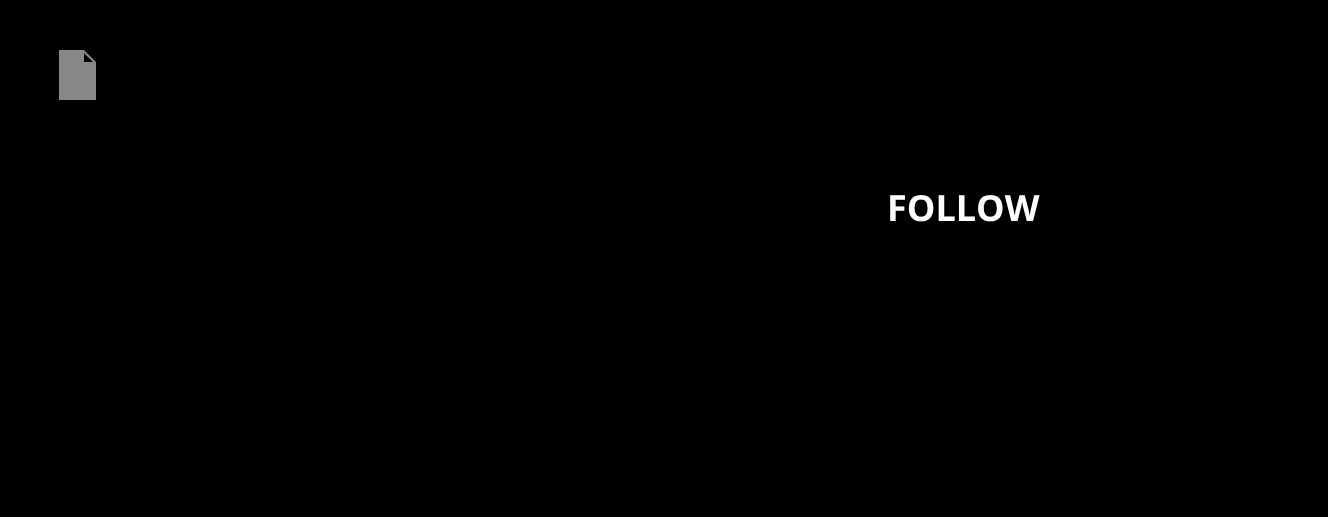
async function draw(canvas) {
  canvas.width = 1328
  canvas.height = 517
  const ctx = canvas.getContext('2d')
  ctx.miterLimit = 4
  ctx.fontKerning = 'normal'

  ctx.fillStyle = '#000'
  ctx.fillRect(0, 0, 1328, 517)
  ctx.fillStyle = '#888'
  ctx.beginPath()
  ctx.moveTo(84, 50)
  ctx.lineTo(59, 50)
  ctx.lineTo(59, 100)
  ctx.lineTo(96, 100)
  ctx.lineTo(96, 62)
  ctx.closePath()
  ctx.moveTo(84, 62)
  ctx.lineTo(84, 53)
  ctx.lineTo(93, 62)
  ctx.closePath()
  ctx.fill()
  ctx.font = 'bold 36px Open Sans'
  ctx.fillStyle = '#fff'
  ctx.fillText('FOLLOW', 887, 221)
}

draw(document.querySelector('canvas'))
